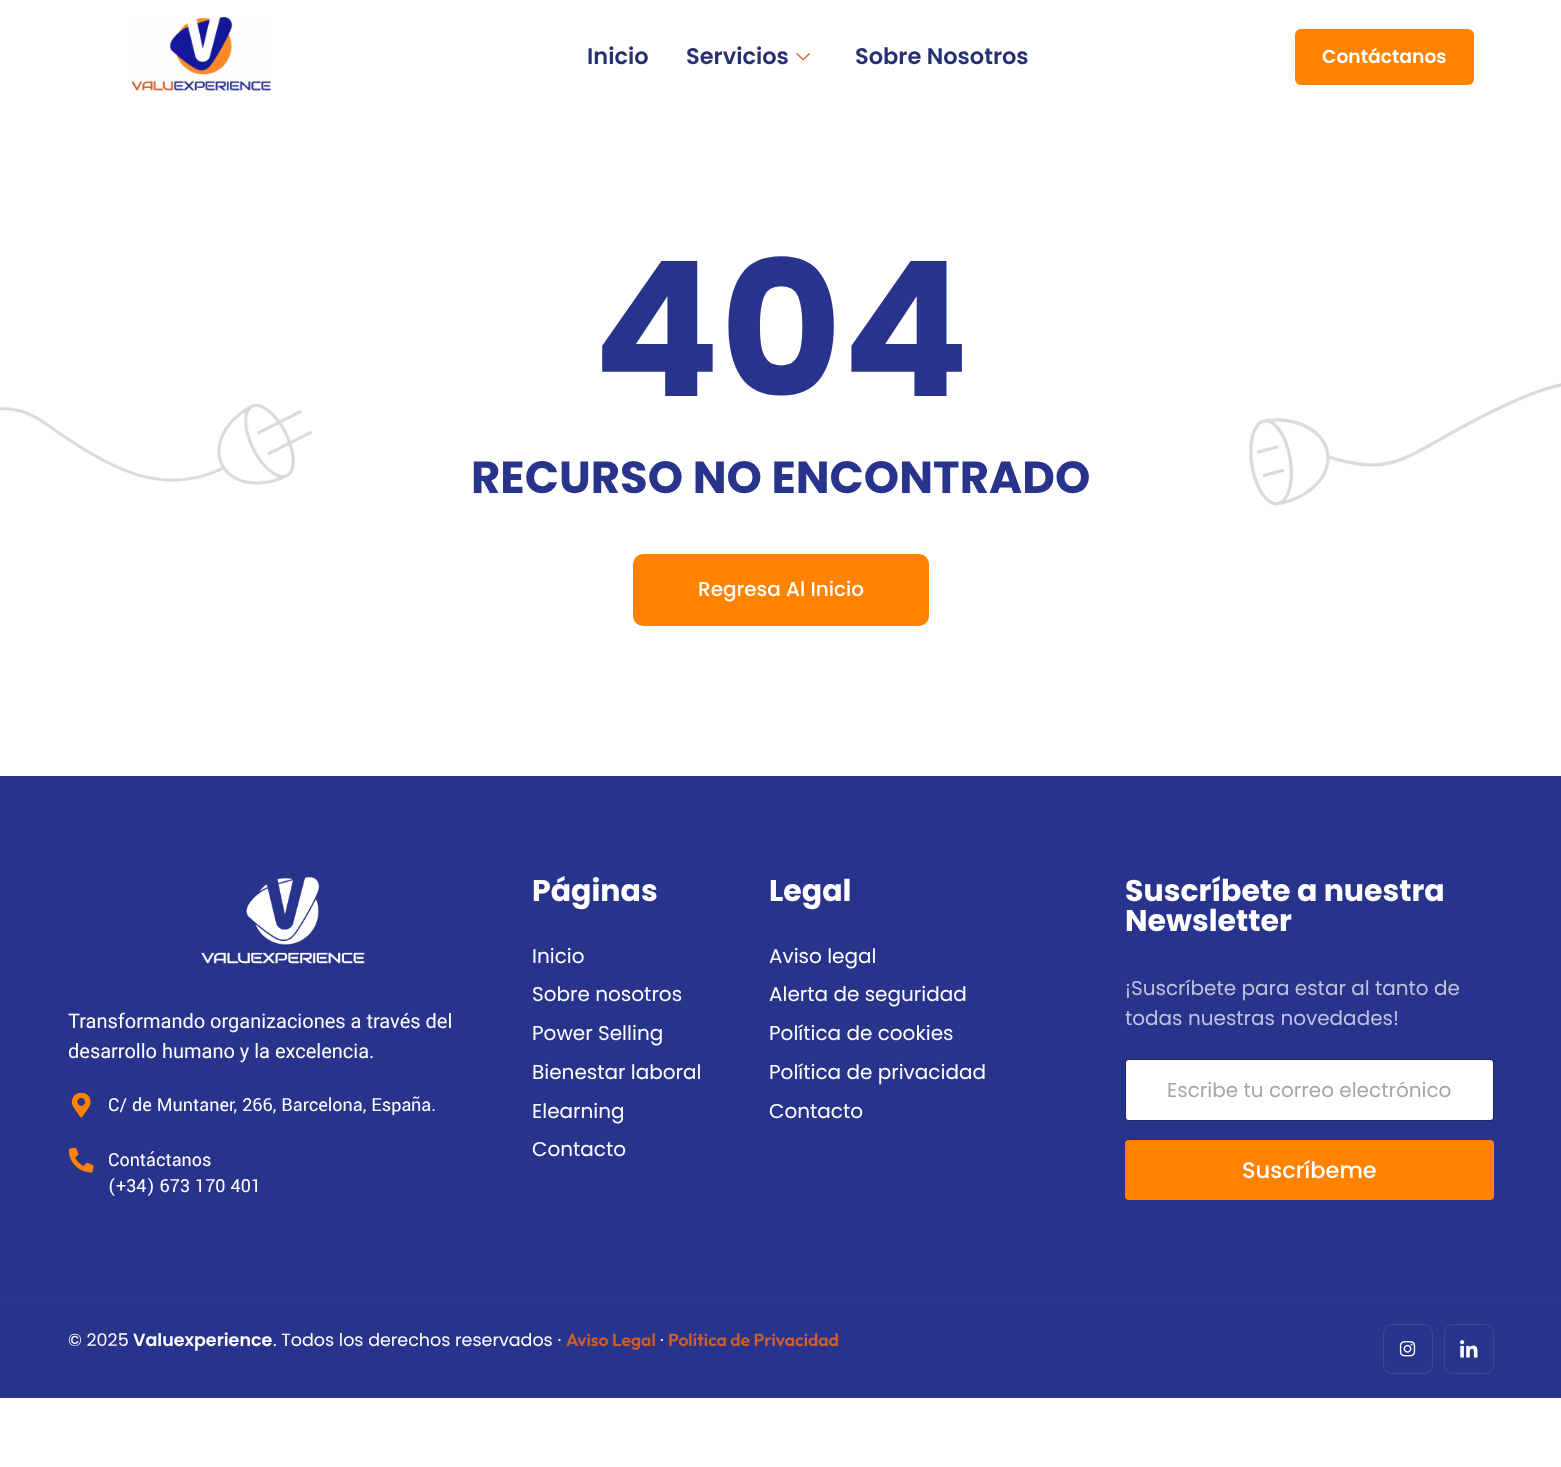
async function draw(canvas) {
  canvas.width = 1561
  canvas.height = 1467
  const ctx = canvas.getContext('2d')
  ctx.miterLimit = 4
  ctx.fontKerning = 'normal'
  async function loadImage(src) {
    const img = new Image()
    img.src = src
    await img.decode()
    return img
  }

  ctx.fillStyle = '#fff'
  ctx.fillRect(0, 0, 1561, 1467)
  ctx.drawImage(await loadImage('image0.png'), 131, 17, 140, 74)
  ctx.font = '600 22.5px Poppins'
  ctx.fillStyle = '#273171'
  ctx.fillText('Inicio', 587, 64)
  ctx.fillText('Servicios', 686, 64)
  ctx.drawImage(await loadImage('image1.png'), 796, 53, 14, 8)
  ctx.fillText('Sobre Nosotros', 855, 64)
  ctx.fillStyle = '#ff8300'
  ctx.beginPath()
  ctx.roundRect(1295, 29, 179, 56, 6)
  ctx.fill()
  ctx.font = '600 18.75px Poppins'
  ctx.fillStyle = '#fff'
  ctx.fillText('Contáctanos', 1322, 63)
  ctx.drawImage(await loadImage('image2.png'), 0, 404, 312, 81)
  ctx.font = 'bold 187.5px Poppins'
  ctx.fillStyle = '#28338c'
  ctx.fillText('404', 593, 396)
  ctx.font = 'bold 45px Poppins'
  ctx.fillText('RECURSO NO ENCONTRADO', 471, 493)
  ctx.fillStyle = '#ff8300'
  ctx.beginPath()
  ctx.roundRect(633, 554, 296, 72, 10)
  ctx.fill()
  ctx.font = '500 20px Poppins'
  ctx.fillStyle = '#fff'
  ctx.fillText('Regresa Al Inicio', 698, 596)
  ctx.drawImage(await loadImage('image3.png'), 1249, 383, 312, 123)
  ctx.fillStyle = '#28338c'
  ctx.fillRect(0, 776, 1561, 523)
  ctx.drawImage(await loadImage('image4.png'), 201, 877, 164, 87)
  ctx.font = '20px Roboto'
  ctx.fillStyle = '#fff'
  ctx.fillText('Transformando organizaciones a través del', 68, 1028)
  ctx.fillText('desarrollo humano y la excelencia.', 68, 1058)
  ctx.drawImage(await loadImage('image5.png'), 71, 1093, 20, 25)
  ctx.font = '20px Yantramanav'
  ctx.fillText('C/ de Muntaner, 266, Barcelona, España.', 108, 1111)
  ctx.drawImage(await loadImage('image6.png'), 69, 1148, 25, 25)
  ctx.fillText('Contáctanos', 108, 1166)
  ctx.fillText('(+34) 673 170 401', 108, 1192)
  ctx.font = 'bold 30px Poppins'
  ctx.fillText('Páginas', 532, 901)
  ctx.font = '20px Poppins'
  ctx.fillText('Inicio', 532, 963)
  ctx.fillText('Sobre nosotros', 532, 1001)
  ctx.fillText('Power Selling', 532, 1040)
  ctx.fillText('Bienestar laboral', 532, 1079)
  ctx.fillText('Elearning', 532, 1118)
  ctx.fillText('Contacto', 532, 1156)
  ctx.font = 'bold 30px Poppins'
  ctx.fillText('Legal', 769, 901)
  ctx.font = '20px Poppins'
  ctx.fillText('Aviso legal', 769, 963)
  ctx.fillText('Alerta de seguridad', 769, 1001)
  ctx.fillText('Política de cookies', 769, 1040)
  ctx.fillText('Política de privacidad', 769, 1079)
  ctx.fillText('Contacto', 769, 1118)
  ctx.font = 'bold 30px Poppins'
  ctx.fillText('Suscríbete a nuestra', 1125, 901)
  ctx.fillText('Newsletter', 1125, 931)
  ctx.font = '20px Poppins'
  ctx.fillStyle = '#bfc2dd'
  ctx.fillText('¡Suscríbete para estar al tanto de', 1125, 995)
  ctx.fillText('todas nuestras novedades!', 1125, 1025)
  ctx.fillStyle = '#fff'
  ctx.beginPath()
  ctx.roundRect(1126, 1060, 367, 60, 2.5)
  ctx.fill()
  ctx.beginPath()
  ctx.roundRect(1125.5, 1059.5, 368, 61, 3.5)
  ctx.strokeStyle = '#00000040'
  ctx.stroke()
  ctx.fillStyle = '#a6a6a6'
  ctx.fillText('Escribe tu correo electrónico', 1167, 1097)
  ctx.fillStyle = '#ff8300'
  ctx.beginPath()
  ctx.roundRect(1125, 1140, 369, 60, 4)
  ctx.fill()
  ctx.font = '500 22.5px Poppins'
  ctx.fillStyle = '#fff'
  ctx.fillText('Suscríbeme', 1242, 1178)
  ctx.fillStyle = '#28338c'
  ctx.fillRect(0, 1300, 1561, 98)
  ctx.fillStyle = '#2e3591'
  ctx.fillRect(0, 1299, 1561, 1)
  ctx.font = '17.5px Poppins'
  ctx.fillStyle = '#fff'
  ctx.fillText('© 2025', 68, 1346)
  ctx.font = '600 17.5px Poppins'
  ctx.fillText('Valuexperience', 133, 1346)
  ctx.font = '17.5px Poppins'
  ctx.fillText('. Todos los derechos reservados ·', 273, 1346)
  ctx.font = '600 17.5px Outfit'
  ctx.fillStyle = '#d05f27'
  ctx.fillText('Aviso Legal', 566, 1346)
  ctx.font = '17.5px Poppins'
  ctx.fillStyle = '#fff'
  ctx.fillText('·', 660, 1346)
  ctx.font = '600 17.5px Outfit'
  ctx.fillStyle = '#d05f27'
  ctx.fillText('Política de Privacidad', 668, 1346)
  ctx.beginPath()
  ctx.roundRect(1383.5, 1324.5, 49, 49, 8.5)
  ctx.strokeStyle = '#3e4798'
  ctx.stroke()
  ctx.drawImage(await loadImage('image7.png'), 1399, 1341, 17, 16)
  ctx.beginPath()
  ctx.roundRect(1444.5, 1324.5, 49, 49, 8.5)
  ctx.stroke()
  ctx.drawImage(await loadImage('image8.png'), 1460, 1340, 18, 18)
}

draw(document.querySelector('canvas'))
